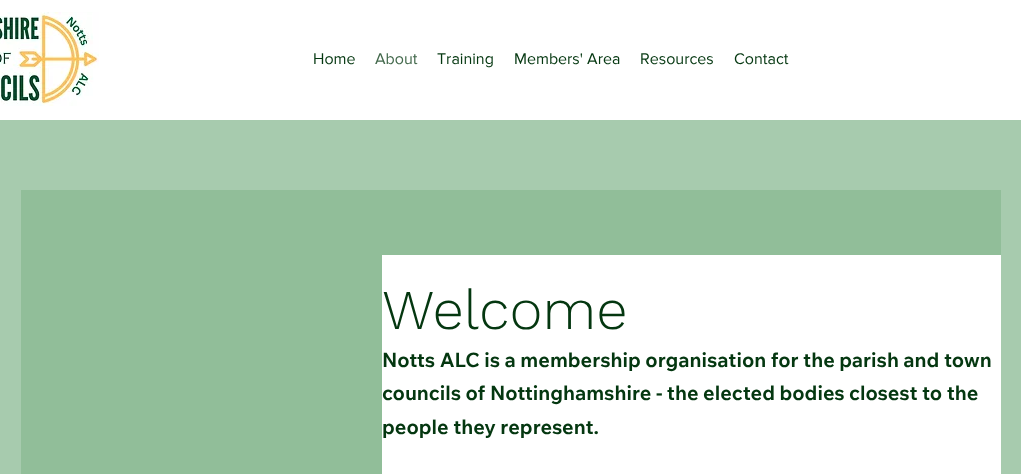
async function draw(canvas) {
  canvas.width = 1021
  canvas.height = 474
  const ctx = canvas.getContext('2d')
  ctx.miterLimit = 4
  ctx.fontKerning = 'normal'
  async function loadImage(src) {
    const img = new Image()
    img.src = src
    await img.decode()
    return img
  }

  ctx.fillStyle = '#fff'
  ctx.fillRect(0, 0, 1021, 474)
  ctx.drawImage(await loadImage('image0.png'), 0, 12, 99, 94)
  ctx.font = '16px "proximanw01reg"'
  ctx.fillStyle = '#043710'
  ctx.fillText('Home', 313, 64)
  ctx.fillStyle = '#43694c'
  ctx.fillText('About', 375, 64)
  ctx.fillStyle = '#043710'
  ctx.fillText('Training', 437, 64)
  ctx.fillText('Members\' Area', 514, 64)
  ctx.fillText('Resources', 640, 64)
  ctx.fillText('Contact', 734, 64)
  ctx.fillStyle = '#a7cbae'
  ctx.fillRect(0, 120, 1021, 354)
  ctx.fillStyle = '#91be99'
  ctx.fillRect(21, 190, 619, 284)
  ctx.fillRect(640, 190, 361, 65)
  ctx.fillStyle = '#fff'
  ctx.fillRect(382, 255, 619, 219)
  ctx.font = '300 56px Work Sans'
  ctx.fillStyle = '#043710'
  ctx.fillText('Welcome', 382, 329)
  ctx.font = 'bold 20px Wix Madefor Text'
  ctx.fillText('Notts ALC is a membership organisation for the parish and town', 382, 367)
  ctx.fillText('councils of Nottinghamshire - the elected bodies closest to the', 382, 400)
  ctx.fillText('people they represent.', 382, 434)
}

draw(document.querySelector('canvas'))
